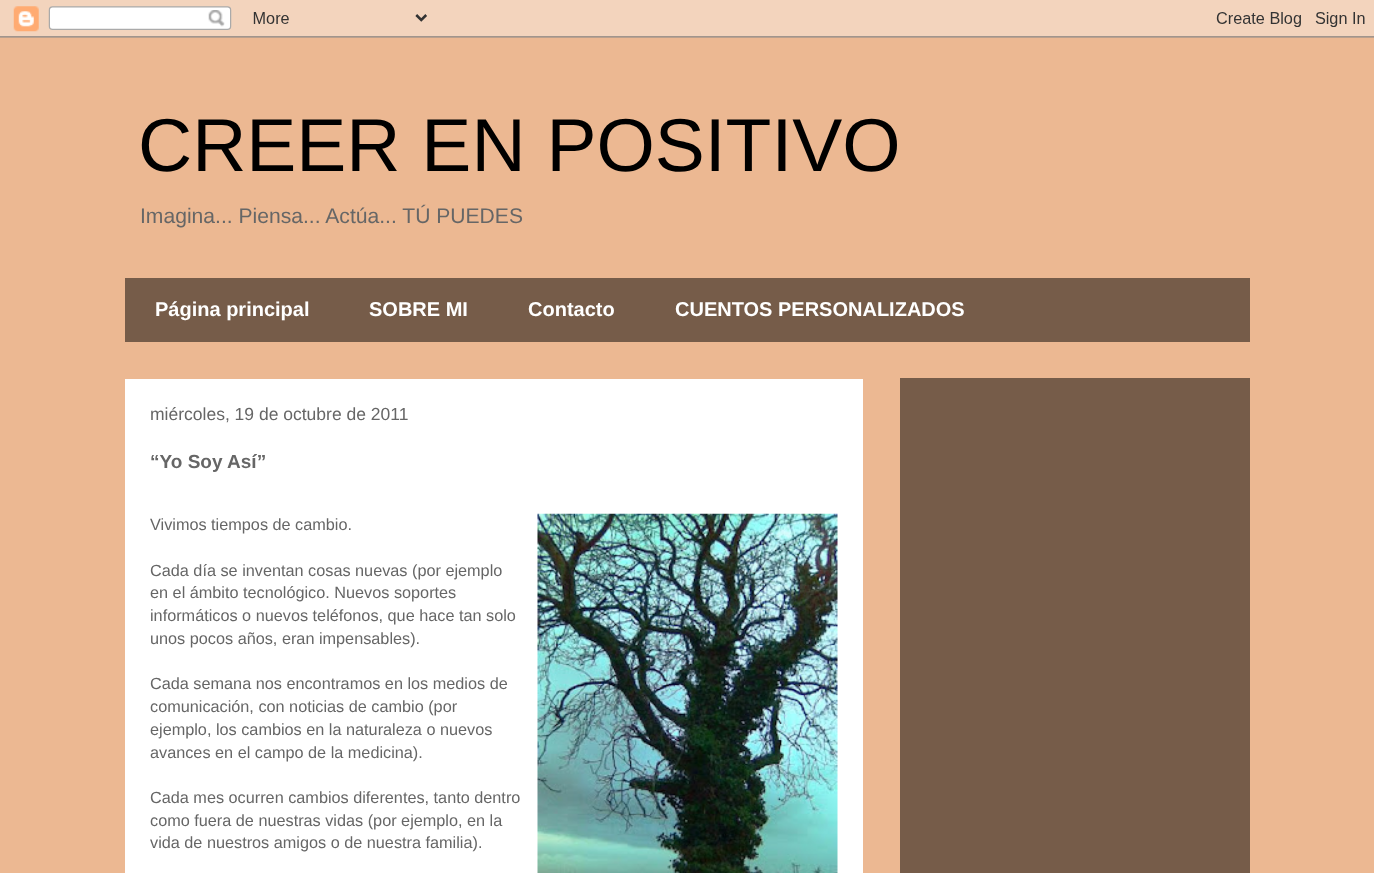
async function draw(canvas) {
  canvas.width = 1374
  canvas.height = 873
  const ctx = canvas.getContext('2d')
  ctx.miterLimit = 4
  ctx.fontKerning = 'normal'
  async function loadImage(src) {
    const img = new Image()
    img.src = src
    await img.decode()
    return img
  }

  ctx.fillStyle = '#ecb892'
  ctx.fillRect(0, 0, 1374, 873)
  ctx.drawImage(await loadImage('image0.png'), 0, 0, 1374, 38)
  ctx.font = '75px Liberation Sans'
  ctx.fillStyle = '#000'
  ctx.fillText('CREER EN POSITIVO', 138, 171)
  ctx.font = '21.1px Liberation Sans'
  ctx.fillStyle = '#666'
  ctx.fillText('Imagina... Piensa... Actúa... TÚ PUEDES', 140, 223)
  ctx.fillStyle = '#765c49'
  ctx.fillRect(125, 278, 1125, 64)
  ctx.font = 'bold 20px Liberation Sans'
  ctx.fillStyle = '#fff'
  ctx.fillText('Página principal', 155, 316)
  ctx.fillText('SOBRE MI', 369, 316)
  ctx.fillText('Contacto', 528, 316)
  ctx.fillText('CUENTOS PERSONALIZADOS', 675, 316)
  ctx.fillRect(125, 379, 738, 494)
  ctx.font = '17.5px Liberation Sans'
  ctx.fillStyle = '#666'
  ctx.fillText('miércoles, 19 de octubre de 2011', 150, 420)
  ctx.font = 'bold 19px Liberation Sans'
  ctx.fillText('“Yo Soy Así”', 150, 468)
  ctx.font = '16.25px Liberation Sans'
  ctx.fillText('Vivimos tiempos de cambio.', 150, 530)
  ctx.drawImage(await loadImage('image1.png'), 537, 513, 301, 360)
  ctx.fillText('Cada día se inventan cosas nuevas (por ejemplo', 150, 576)
  ctx.fillText('en el ámbito tecnológico. Nuevos soportes', 150, 598)
  ctx.fillText('informáticos o nuevos teléfonos, que hace tan solo', 150, 621)
  ctx.fillText('unos pocos años, eran impensables).', 150, 644)
  ctx.fillText('Cada semana nos encontramos en los medios de', 150, 689)
  ctx.fillText('comunicación, con noticias de cambio (por', 150, 712)
  ctx.fillText('ejemplo, los cambios en la naturaleza o nuevos', 150, 735)
  ctx.fillText('avances en el campo de la medicina).', 150, 758)
  ctx.fillText('Cada mes ocurren cambios diferentes, tanto dentro', 150, 803)
  ctx.fillText('como fuera de nuestras vidas (por ejemplo, en la', 150, 826)
  ctx.fillText('vida de nuestros amigos o de nuestra familia).', 150, 848)
  ctx.fillStyle = '#765c49'
  ctx.fillRect(900, 378, 350, 495)
}

draw(document.querySelector('canvas'))
